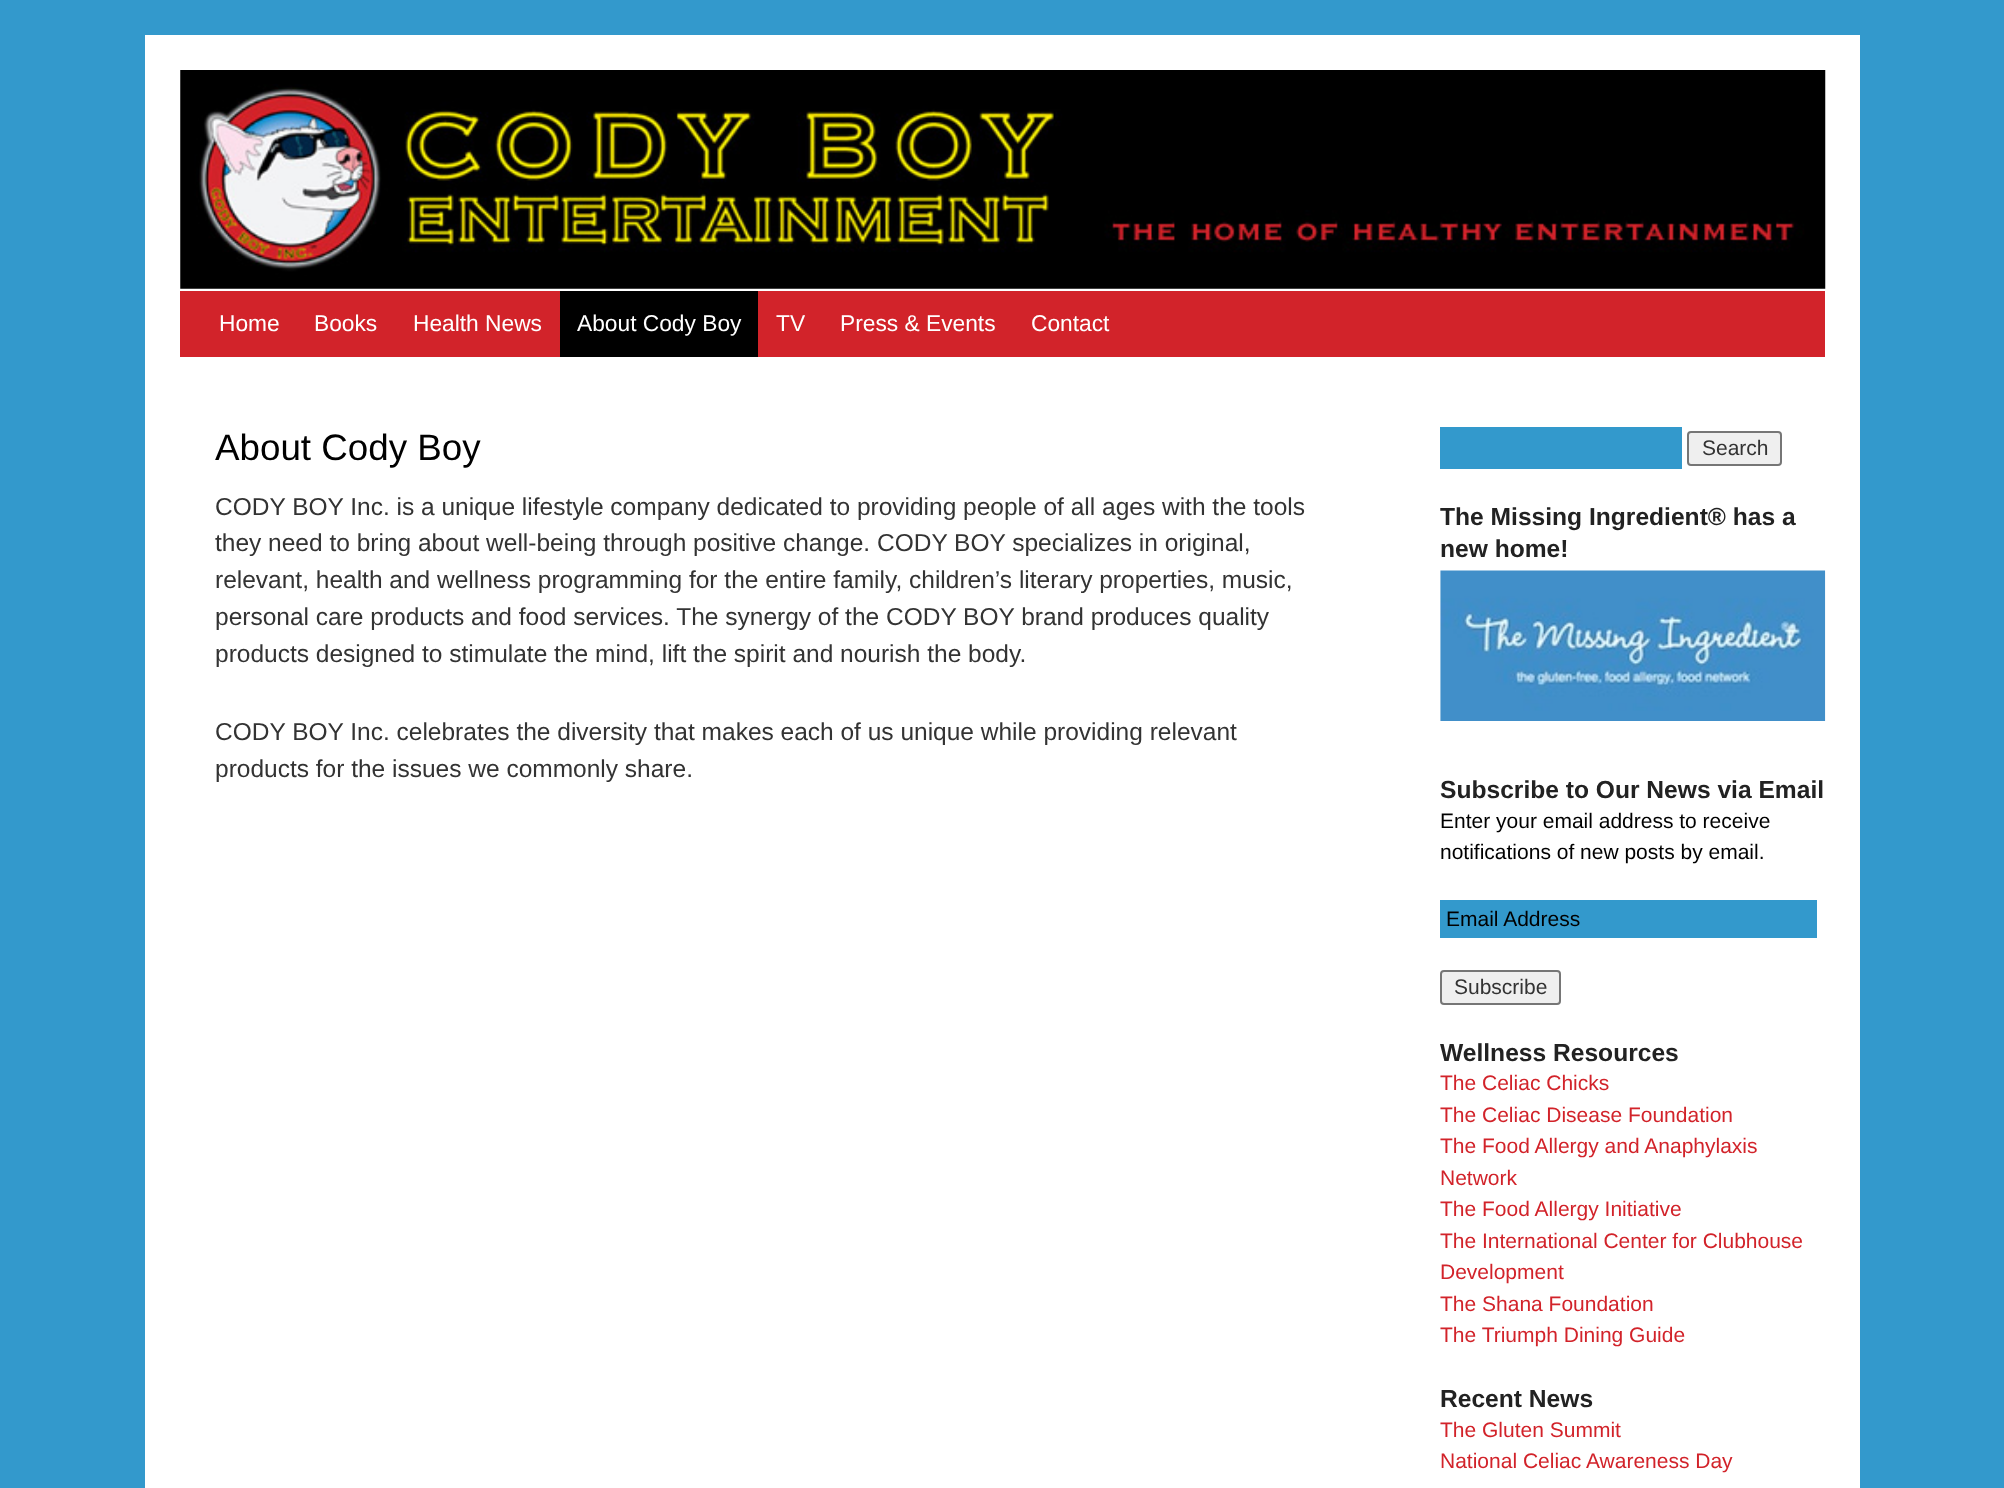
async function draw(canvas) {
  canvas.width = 2004
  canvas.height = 1488
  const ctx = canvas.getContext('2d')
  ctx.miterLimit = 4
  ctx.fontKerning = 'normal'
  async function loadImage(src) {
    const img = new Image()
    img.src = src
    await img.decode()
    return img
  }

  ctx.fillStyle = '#39c'
  ctx.fillRect(0, 0, 2004, 1488)
  ctx.fillStyle = '#fff'
  ctx.fillRect(145, 35, 1715, 1453)
  ctx.drawImage(await loadImage('image0.png'), 180, 70, 1646, 219)
  ctx.fillStyle = '#d2232a'
  ctx.fillRect(180, 291, 1645, 66)
  ctx.font = '22.75px Liberation Sans'
  ctx.fillStyle = '#fff'
  ctx.fillText('Home', 219, 331)
  ctx.fillText('Books', 314, 331)
  ctx.fillText('Health News', 413, 331)
  ctx.fillStyle = '#000'
  ctx.fillRect(560, 291, 198, 66)
  ctx.fillStyle = '#fff'
  ctx.fillText('About Cody Boy', 577, 331)
  ctx.fillText('TV', 776, 331)
  ctx.fillText('Press & Events', 840, 331)
  ctx.fillText('Contact', 1031, 331)
  ctx.font = '36.75px Liberation Sans'
  ctx.fillStyle = '#000'
  ctx.fillText('About Cody Boy', 215, 460)
  ctx.font = '24.5px Liberation Sans'
  ctx.fillStyle = '#333'
  ctx.fillText('CODY BOY Inc. is a unique lifestyle company dedicated to providing people of all ages with the tools', 215, 515)
  ctx.fillText('they need to bring about well-being through positive change. CODY BOY specializes in original,', 215, 551)
  ctx.fillText('relevant, health and wellness programming for the entire family, children’s literary properties, music,', 215, 588)
  ctx.fillText('personal care products and food services. The synergy of the CODY BOY brand produces quality', 215, 625)
  ctx.fillText('products designed to stimulate the mind, lift the spirit and nourish the body.', 215, 662)
  ctx.fillText('CODY BOY Inc. celebrates the diversity that makes each of us unique while providing relevant', 215, 740)
  ctx.fillText('products for the issues we commonly share.', 215, 777)
  ctx.fillStyle = '#39c'
  ctx.fillRect(1440, 427, 242, 42)
  ctx.fillStyle = '#efefef'
  ctx.beginPath()
  ctx.roundRect(1688, 432, 93, 33, 3)
  ctx.fill()
  ctx.strokeStyle = '#767676'
  ctx.lineWidth = 2
  ctx.stroke()
  ctx.font = '21px Liberation Sans'
  ctx.fillStyle = '#333'
  ctx.fillText('Search', 1702, 455)
  ctx.font = 'bold 24.6px Liberation Sans'
  ctx.fillStyle = '#222'
  ctx.fillText('The Missing Ingredient® has a', 1440, 525)
  ctx.fillText('new home!', 1440, 557)
  ctx.drawImage(await loadImage('image1.png'), 1440, 570, 386, 151)
  ctx.fillText('Subscribe to Our News via Email', 1440, 798)
  ctx.font = '21px Liberation Sans'
  ctx.fillStyle = '#000'
  ctx.fillText('Enter your email address to receive', 1440, 828)
  ctx.fillText('notifications of new posts by email.', 1440, 859)
  ctx.fillStyle = '#39c'
  ctx.fillRect(1440, 900, 377, 38)
  ctx.fillStyle = '#000'
  ctx.fillText('Email Address', 1446, 926)
  ctx.fillStyle = '#efefef'
  ctx.beginPath()
  ctx.roundRect(1441, 971, 119, 33, 3)
  ctx.fill()
  ctx.stroke()
  ctx.fillStyle = '#333'
  ctx.fillText('Subscribe', 1454, 994)
  ctx.font = 'bold 24.6px Liberation Sans'
  ctx.fillStyle = '#222'
  ctx.fillText('Wellness Resources', 1440, 1061)
  ctx.font = '21px Liberation Sans'
  ctx.fillStyle = '#d2232a'
  ctx.fillText('The Celiac Chicks', 1440, 1090)
  ctx.fillText('The Celiac Disease Foundation', 1440, 1122)
  ctx.fillText('The Food Allergy and Anaphylaxis', 1440, 1153)
  ctx.fillText('Network', 1440, 1185)
  ctx.fillText('The Food Allergy Initiative', 1440, 1216)
  ctx.fillText('The International Center for Clubhouse', 1440, 1248)
  ctx.fillText('Development', 1440, 1279)
  ctx.fillText('The Shana Foundation', 1440, 1311)
  ctx.fillText('The Triumph Dining Guide', 1440, 1342)
  ctx.font = 'bold 24.6px Liberation Sans'
  ctx.fillStyle = '#222'
  ctx.fillText('Recent News', 1440, 1407)
  ctx.font = '21px Liberation Sans'
  ctx.fillStyle = '#d2232a'
  ctx.fillText('The Gluten Summit', 1440, 1437)
  ctx.fillText('National Celiac Awareness Day', 1440, 1468)
}

draw(document.querySelector('canvas'))
